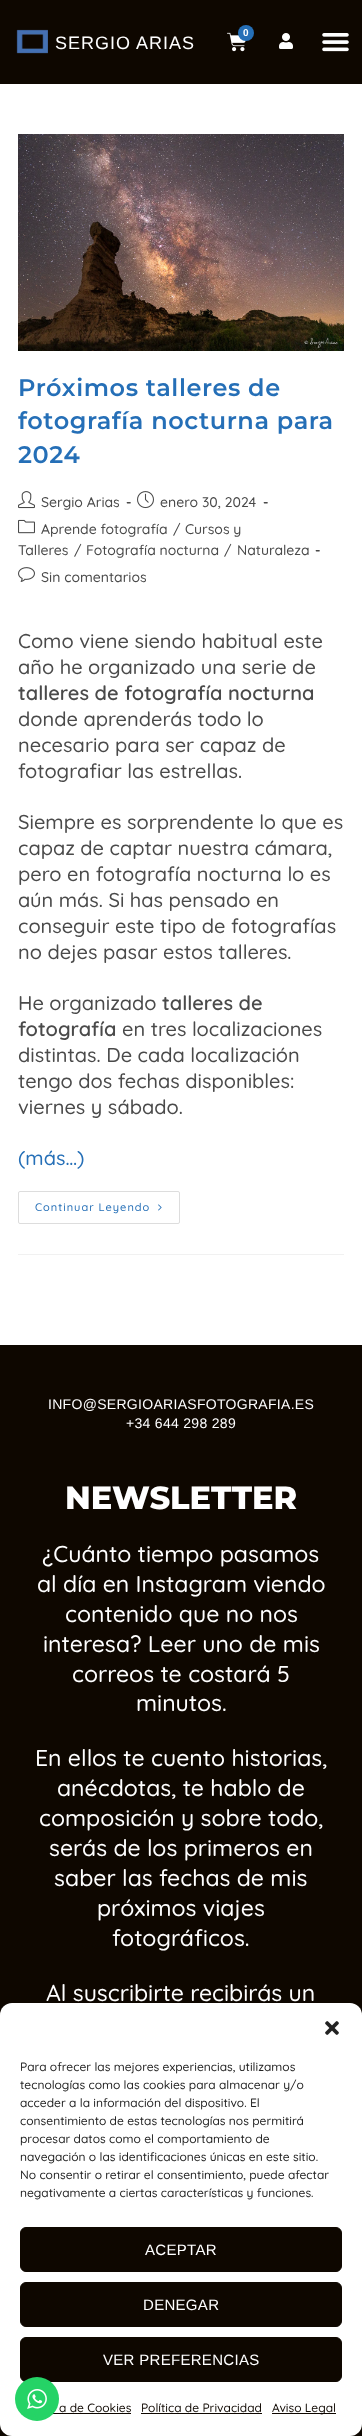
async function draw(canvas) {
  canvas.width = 362
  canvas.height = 2436
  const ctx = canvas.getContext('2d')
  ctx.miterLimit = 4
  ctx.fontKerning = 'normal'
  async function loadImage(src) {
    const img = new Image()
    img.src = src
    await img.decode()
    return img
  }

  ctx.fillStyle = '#fff'
  ctx.fillRect(0, 0, 362, 2436)
  ctx.fillStyle = '#0e0700'
  ctx.fillRect(0, 0, 362, 84)
  ctx.drawImage(await loadImage('image0.png'), 16, 29, 32, 25)
  ctx.letterSpacing = '1px'
  ctx.font = '18px Liberation Sans'
  ctx.fillStyle = '#fff'
  ctx.fillText('SERGIO ARIAS', 55, 49)
  ctx.drawImage(await loadImage('image1.png'), 227, 32, 19, 20)
  ctx.fillStyle = '#256fb7'
  ctx.beginPath()
  ctx.arc(246, 33, 8, 0, 2 * Math.PI)
  ctx.fill()
  ctx.letterSpacing = '0.3px'
  ctx.font = 'bold 10px Liberation Sans'
  ctx.fillStyle = '#fff'
  ctx.fillText('0', 243, 36)
  ctx.drawImage(await loadImage('image2.png'), 279, 33, 14, 16)
  ctx.drawImage(await loadImage('image3.png'), 322, 33, 27, 19)
  ctx.fillStyle = '#f1f1f1'
  ctx.fillRect(18, 1254, 326, 1)
  ctx.drawImage(await loadImage('image4.png'), 18, 134, 326, 217)
  ctx.letterSpacing = '0.6px'
  ctx.font = '600 24px Montserrat'
  ctx.fillStyle = '#256fb7'
  ctx.fillText('Próximos talleres de', 18, 396)
  ctx.fillText('fotografía nocturna para', 18, 429)
  ctx.fillText('2024', 18, 463)
  ctx.drawImage(await loadImage('image5.png'), 18, 491, 17, 18)
  ctx.letterSpacing = '0px'
  ctx.font = '500 14px Quicksand'
  ctx.fillStyle = '#4a4a4a'
  ctx.fillText('Sergio Arias', 41, 507)
  ctx.font = 'bold 14px Quicksand'
  ctx.fillText('-', 126, 507)
  ctx.drawImage(await loadImage('image6.png'), 137, 491, 17, 18)
  ctx.font = '500 14px Quicksand'
  ctx.fillText('enero 30, 2024', 160, 507)
  ctx.font = 'bold 14px Quicksand'
  ctx.fillText('-', 263, 507)
  ctx.drawImage(await loadImage('image7.png'), 18, 519, 17, 15)
  ctx.font = '500 14px Quicksand'
  ctx.fillText('Aprende fotografía', 41, 534)
  ctx.fillText('/', 173, 534)
  ctx.fillText('Cursos y', 185, 534)
  ctx.fillText('Talleres', 18, 555)
  ctx.fillText('/', 74, 555)
  ctx.fillText('Fotografía nocturna', 86, 555)
  ctx.fillText('/', 224, 555)
  ctx.fillText('Naturaleza', 237, 555)
  ctx.font = 'bold 14px Quicksand'
  ctx.fillText('-', 315, 555)
  ctx.drawImage(await loadImage('image8.png'), 18, 567, 17, 15)
  ctx.font = '500 14px Quicksand'
  ctx.fillText('Sin comentarios', 41, 582)
  ctx.font = '500 20px Quicksand'
  ctx.fillText('Como viene siendo habitual este', 18, 648)
  ctx.fillText('año he organizado una serie de', 18, 674)
  ctx.font = '600 20px Quicksand'
  ctx.fillText('talleres de fotografía nocturna', 18, 700)
  ctx.font = '500 20px Quicksand'
  ctx.fillText('donde aprenderás todo lo', 18, 726)
  ctx.fillText('necesario para ser capaz de', 18, 752)
  ctx.fillText('fotografiar las estrellas.', 18, 778)
  ctx.fillText('Siempre es sorprendente lo que es', 18, 829)
  ctx.fillText('capaz de captar nuestra cámara,', 18, 855)
  ctx.fillText('pero en fotografía nocturna lo es', 18, 881)
  ctx.fillText('aún más. Si has pensado en', 18, 907)
  ctx.fillText('conseguir este tipo de fotografías', 18, 933)
  ctx.fillText('no dejes pasar estos talleres.', 18, 959)
  ctx.fillText('He organizado', 18, 1010)
  ctx.font = '600 20px Quicksand'
  ctx.fillText('talleres de', 162, 1010)
  ctx.fillText('fotografía', 18, 1036)
  ctx.font = '500 20px Quicksand'
  ctx.fillText('en tres localizaciones', 122, 1036)
  ctx.fillText('distintas. De cada localización', 18, 1062)
  ctx.fillText('tengo dos fechas disponibles:', 18, 1088)
  ctx.fillText('viernes y sábado.', 18, 1114)
  ctx.fillStyle = '#256fb7'
  ctx.fillText('(más…)', 18, 1165)
  ctx.beginPath()
  ctx.roundRect(18.5, 1191.5, 161, 32, 1.5)
  ctx.strokeStyle = '#ddd'
  ctx.stroke()
  ctx.letterSpacing = '1px'
  ctx.font = '500 11px Quicksand'
  ctx.fillText('Continuar Leyendo', 35, 1211)
  ctx.drawImage(await loadImage('image9.png'), 158, 1204, 4, 7)
  ctx.fillStyle = '#0e0700'
  ctx.fillRect(0, 1345, 362, 1091)
  ctx.letterSpacing = '0.3px'
  ctx.font = '14px Liberation Sans'
  ctx.fillStyle = '#fff'
  ctx.fillText('INFO@SERGIOARIASFOTOGRAFIA.ES', 48, 1409)
  ctx.fillText('+34 644 298 289', 126, 1428)
  ctx.letterSpacing = '0px'
  ctx.font = '800 32px Montserrat'
  ctx.fillText('NEWSLETTER', 65, 1509)
  ctx.font = '500 23px Quicksand'
  ctx.fillText('¿Cuánto tiempo pasamos', 42, 1562)
  ctx.fillText('al día en Instagram viendo', 37, 1592)
  ctx.fillText('contenido que no nos', 65, 1622)
  ctx.fillText('interesa? Leer uno de mis', 43, 1652)
  ctx.fillText('correos te costará 5', 72, 1682)
  ctx.fillText('minutos.', 136, 1711)
  ctx.fillText('En ellos te cuento historias,', 35, 1766)
  ctx.fillText('anécdotas, te hablo de', 57, 1796)
  ctx.fillText('composición y sobre todo,', 39, 1826)
  ctx.fillText('serás de los primeros en', 49, 1856)
  ctx.fillText('saber las fechas de mis', 54, 1886)
  ctx.fillText('próximos viajes', 97, 1916)
  ctx.fillText('fotográficos.', 112, 1946)
  ctx.fillText('Al suscribirte recibirás un', 46, 2001)
  ctx.beginPath()
  ctx.roundRect(0, 2003, 362, 433, 12)
  ctx.fill()
  ctx.drawImage(await loadImage('image10.png'), 325, 2021, 14, 14)
  ctx.font = '500 12px Quicksand'
  ctx.fillStyle = '#222'
  ctx.fillText('Para ofrecer las mejores experiencias, utilizamos', 20, 2071)
  ctx.fillText('tecnologías como las cookies para almacenar y/o', 20, 2089)
  ctx.fillText('acceder a la información del dispositivo. El', 20, 2107)
  ctx.fillText('consentimiento de estas tecnologías nos permitirá', 20, 2125)
  ctx.fillText('procesar datos como el comportamiento de', 20, 2143)
  ctx.fillText('navegación o las identificaciones únicas en este sitio.', 20, 2161)
  ctx.fillText('No consentir o retirar el consentimiento, puede afectar', 20, 2179)
  ctx.fillText('negativamente a ciertas características y funciones.', 20, 2197)
  ctx.fillStyle = '#0e0700'
  ctx.beginPath()
  ctx.roundRect(20.5, 2227.5, 321, 44, 5.5)
  ctx.fill()
  ctx.strokeStyle = '#0e0700'
  ctx.stroke()
  ctx.letterSpacing = '0.3px'
  ctx.font = '15px Liberation Sans'
  ctx.fillStyle = '#fff'
  ctx.fillText('ACEPTAR', 145, 2255)
  ctx.fillStyle = '#0e0700'
  ctx.beginPath()
  ctx.roundRect(20.5, 2282.5, 321, 44, 5.5)
  ctx.fill()
  ctx.stroke()
  ctx.fillStyle = '#fff'
  ctx.fillText('DENEGAR', 143, 2310)
  ctx.fillStyle = '#0e0700'
  ctx.beginPath()
  ctx.roundRect(20.5, 2337.5, 321, 44, 5.5)
  ctx.fill()
  ctx.stroke()
  ctx.fillStyle = '#fff'
  ctx.fillText('VER PREFERENCIAS', 103, 2365)
  ctx.letterSpacing = '0px'
  ctx.font = '500 12px Quicksand'
  ctx.fillStyle = '#0e0700'
  ctx.fillText('a de Cookies', 59, 2412)
  ctx.fillRect(53, 2413, 78, 1)
  ctx.fillText('Política de Privacidad', 141, 2412)
  ctx.fillRect(141, 2413, 121, 1)
  ctx.fillRect(272, 2413, 64, 1)
  ctx.fillText('Aviso Legal', 272, 2412)
  ctx.fillStyle = '#25d366'
  ctx.beginPath()
  ctx.arc(37, 2399, 22, 0, 2 * Math.PI)
  ctx.fill()
  ctx.drawImage(await loadImage('image11.png'), 27, 2389, 20, 20)
}

draw(document.querySelector('canvas'))
